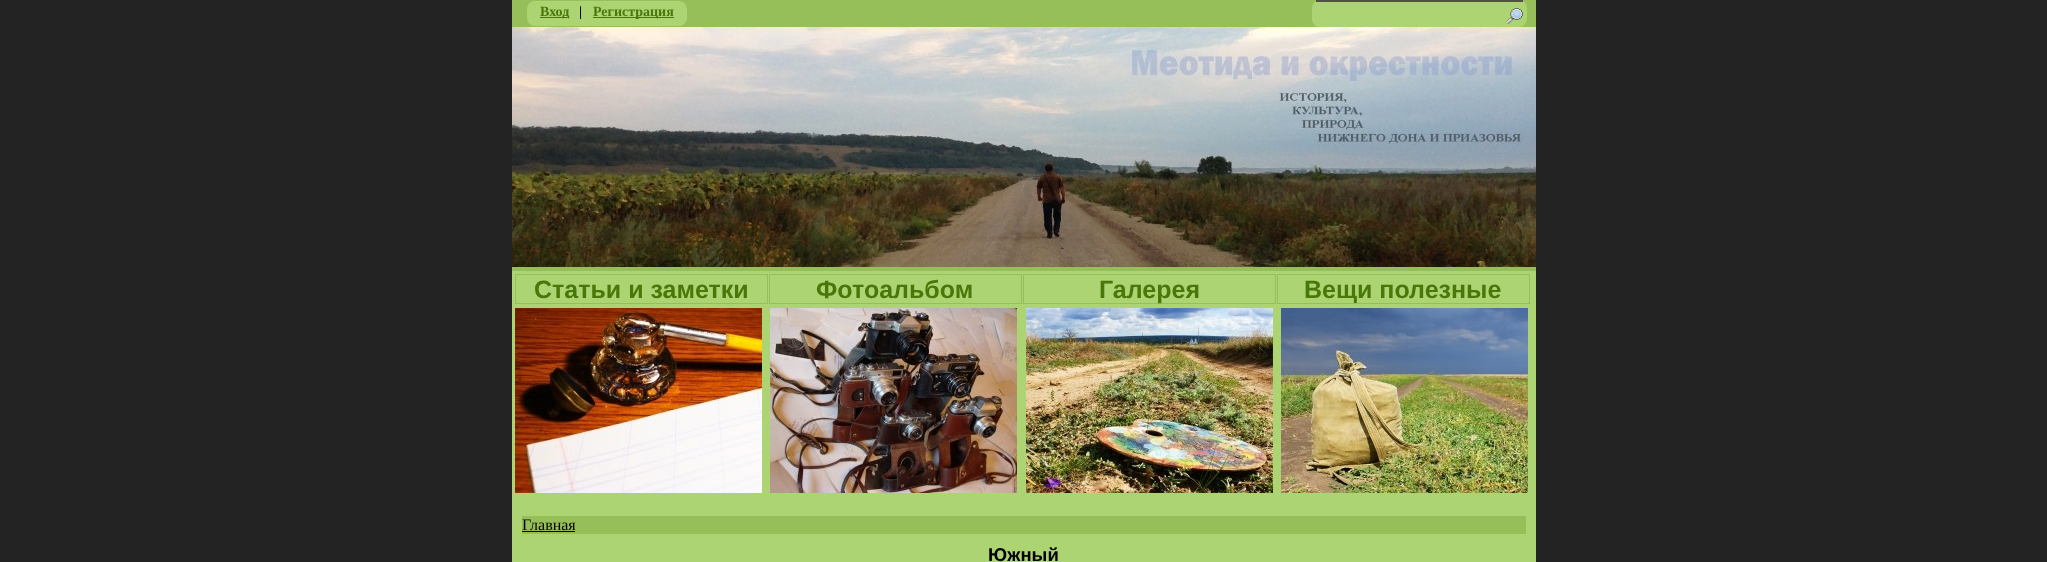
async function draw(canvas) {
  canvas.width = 2047
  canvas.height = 562
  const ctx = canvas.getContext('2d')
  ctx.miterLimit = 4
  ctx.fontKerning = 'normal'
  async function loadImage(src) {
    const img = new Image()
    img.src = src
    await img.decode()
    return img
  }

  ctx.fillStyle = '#232323'
  ctx.fillRect(0, 0, 2047, 562)
  ctx.fillStyle = '#96bf59'
  ctx.fillRect(512, 0, 1024, 271)
  ctx.fillStyle = '#acd473'
  ctx.beginPath()
  ctx.roundRect(527, 1, 160, 25, 8)
  ctx.fill()
  ctx.fillStyle = '#49770a'
  ctx.fillRect(540, 17, 29, 1)
  ctx.font = 'bold 14px Liberation Serif'
  ctx.fillText('Вход', 540, 16)
  ctx.fillStyle = '#000'
  ctx.fillText('|', 579, 16)
  ctx.fillStyle = '#49770a'
  ctx.fillRect(593, 17, 81, 1)
  ctx.fillText('Регистрация', 593, 16)
  ctx.fillStyle = '#acd473'
  ctx.beginPath()
  ctx.roundRect(1312, 0, 215, 27, 8)
  ctx.fill()
  ctx.fillStyle = '#4f4f4f'
  ctx.fillRect(1316, 0, 207, 2)
  ctx.drawImage(await loadImage('image0.png'), 1506, 8, 17, 16)
  ctx.drawImage(await loadImage('image1.png'), 512, 27, 1024, 240)
  ctx.fillStyle = '#acd473'
  ctx.fillRect(512, 271, 1024, 291)
  ctx.strokeStyle = '#96bf59'
  ctx.strokeRect(515.5, 274.5, 252, 29)
  ctx.font = 'bold 25px Liberation Sans'
  ctx.fillStyle = '#49770a'
  ctx.fillText('Статьи и заметки', 534, 298)
  ctx.strokeRect(769.5, 274.5, 252, 29)
  ctx.fillText('Фотоальбом', 816, 298)
  ctx.strokeRect(1023.5, 274.5, 252, 29)
  ctx.fillText('Галерея', 1099, 298)
  ctx.strokeRect(1277.5, 274.5, 252, 29)
  ctx.fillText('Вещи полезные', 1304, 298)
  ctx.drawImage(await loadImage('image2.png'), 515, 308, 247, 185)
  ctx.drawImage(await loadImage('image3.png'), 770, 308, 247, 185)
  ctx.drawImage(await loadImage('image4.png'), 1026, 308, 247, 185)
  ctx.drawImage(await loadImage('image5.png'), 1281, 308, 247, 185)
  ctx.fillStyle = '#96bf59'
  ctx.fillRect(522, 516, 1004, 18)
  ctx.font = '16px Liberation Serif'
  ctx.fillStyle = '#000'
  ctx.fillText('Главная', 522, 530)
  ctx.fillRect(522, 531, 53, 1)
  ctx.font = 'bold 18.5px Liberation Sans'
  ctx.fillText('Южный', 988, 561)
}

draw(document.querySelector('canvas'))
